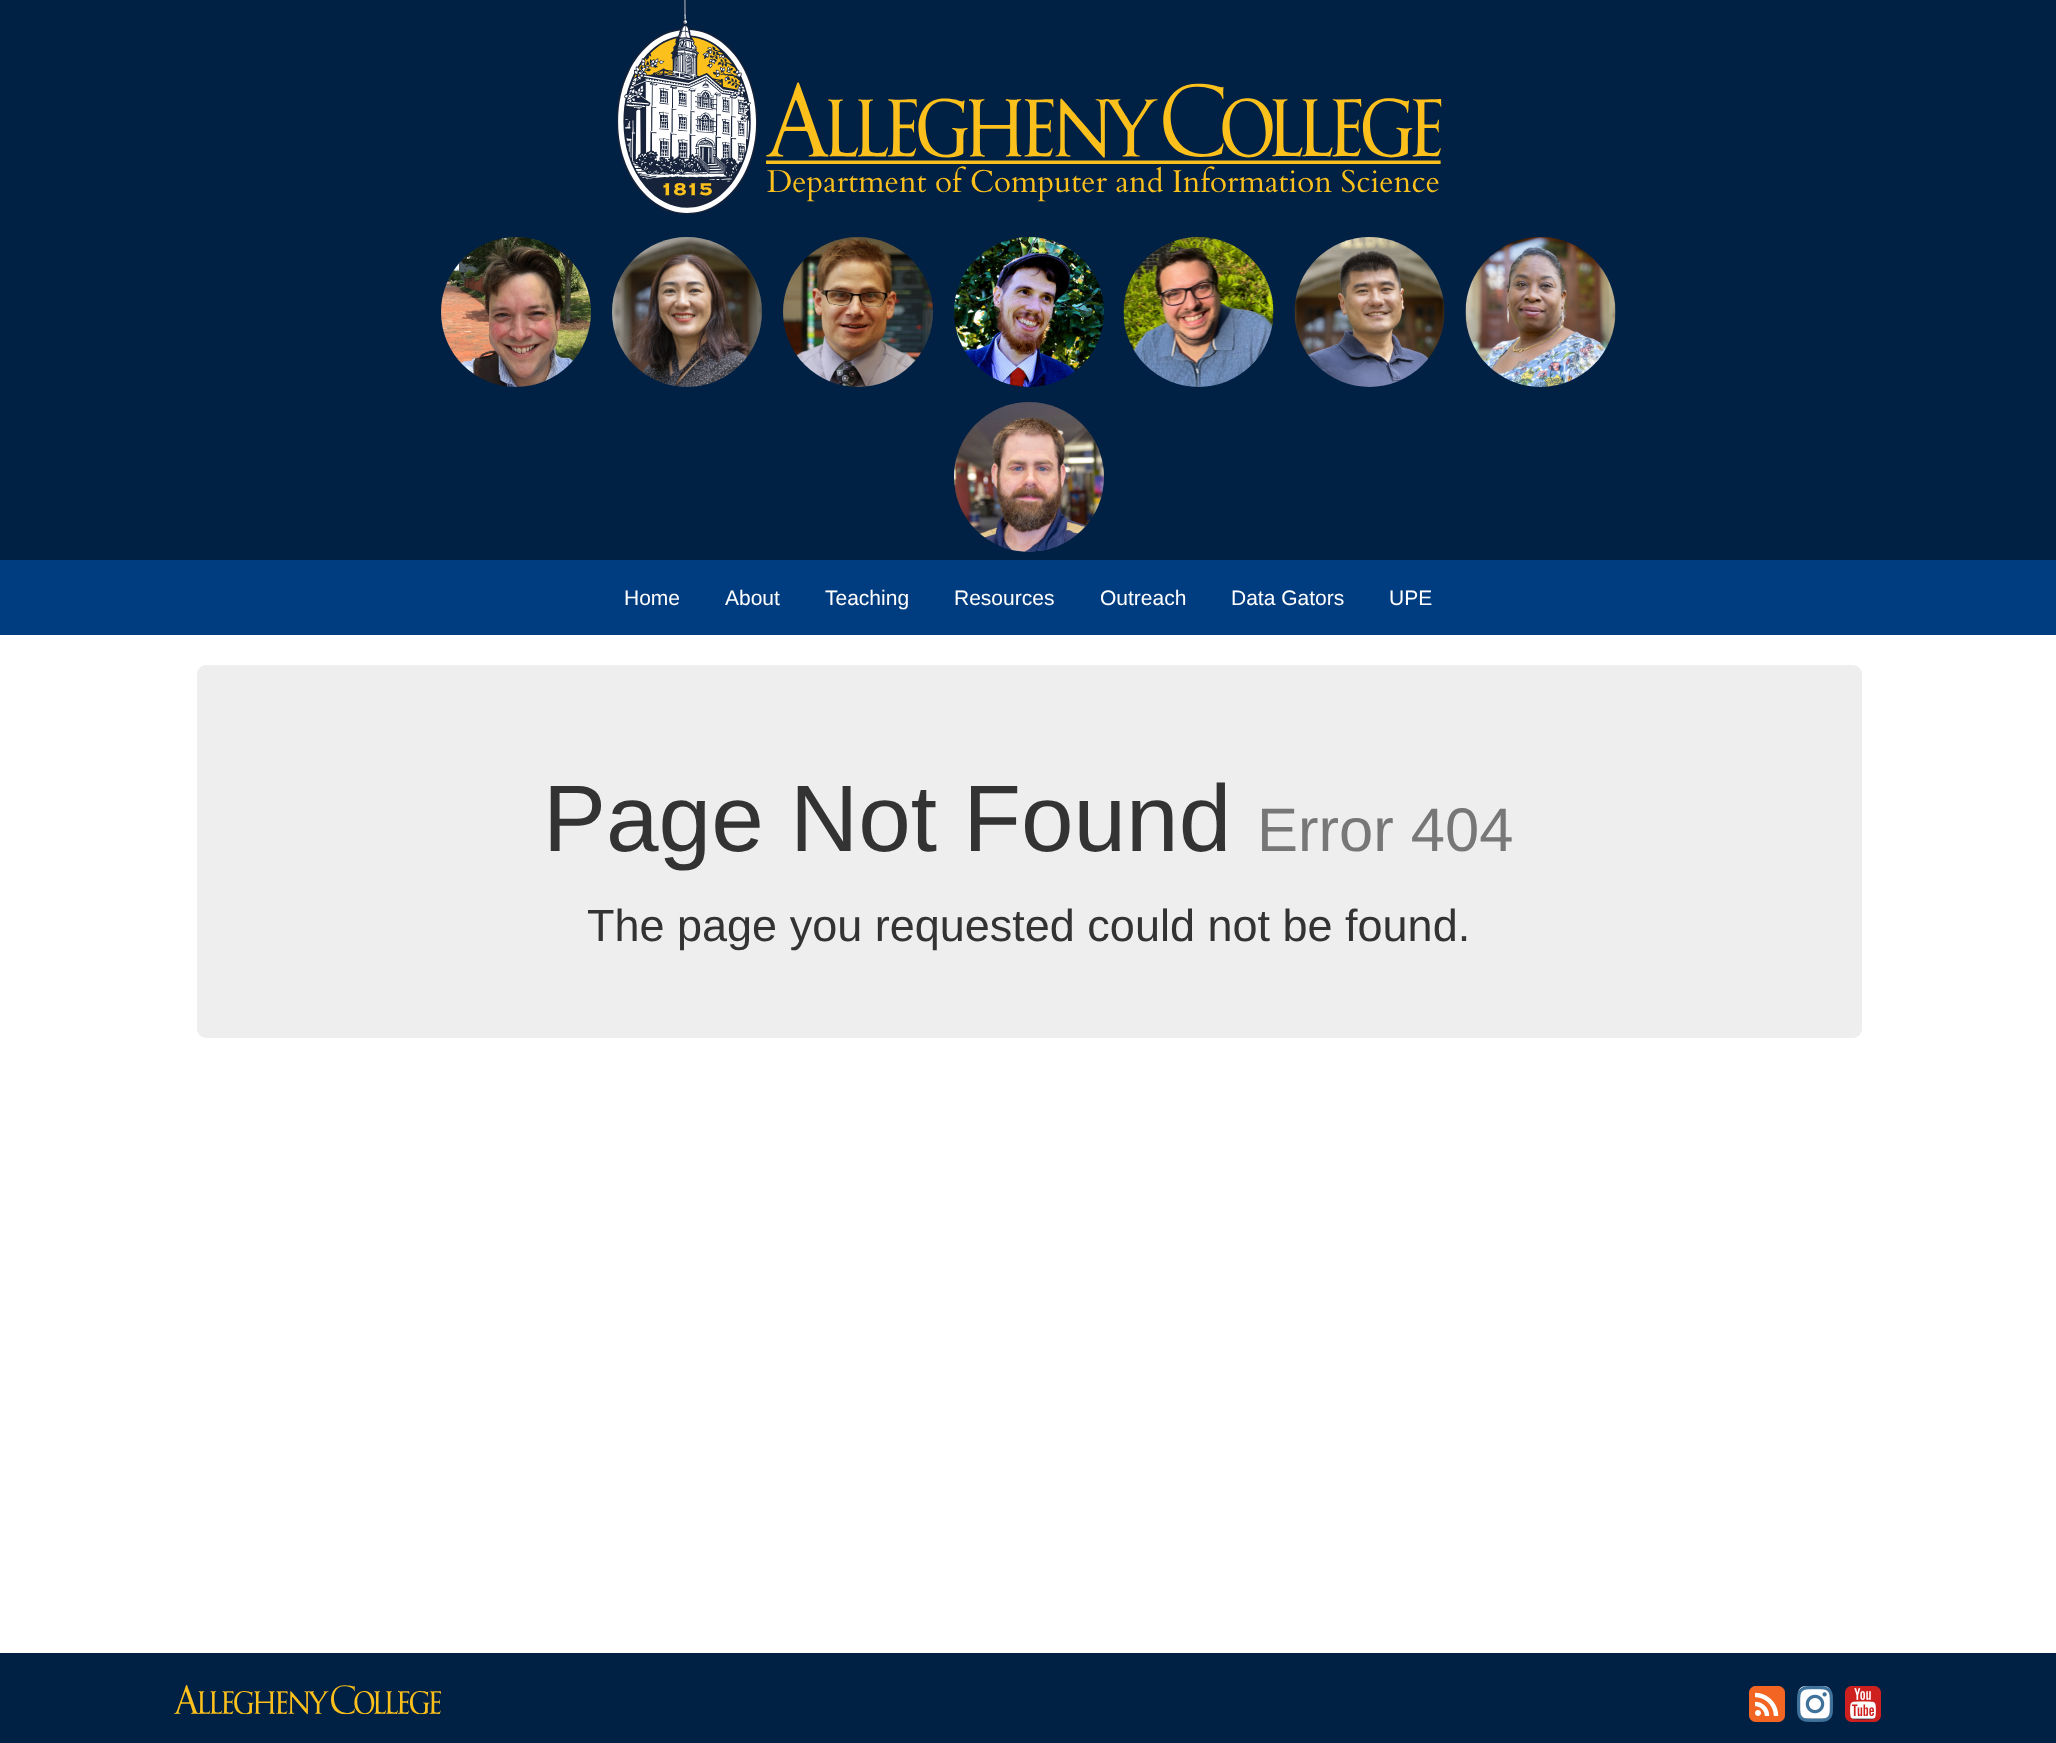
async function draw(canvas) {
  canvas.width = 2056
  canvas.height = 1743
  const ctx = canvas.getContext('2d')
  ctx.miterLimit = 4
  ctx.fontKerning = 'normal'
  async function loadImage(src) {
    const img = new Image()
    img.src = src
    await img.decode()
    return img
  }

  ctx.fillStyle = '#fff'
  ctx.fillRect(0, 0, 2056, 1743)
  ctx.fillStyle = '#002144'
  ctx.fillRect(0, 0, 2056, 560)
  ctx.drawImage(await loadImage('image0.png'), 617, 0, 825, 215)
  ctx.drawImage(await loadImage('image1.png'), 441, 237, 150, 150)
  ctx.drawImage(await loadImage('image2.png'), 612, 237, 150, 150)
  ctx.drawImage(await loadImage('image3.png'), 783, 237, 150, 150)
  ctx.drawImage(await loadImage('image4.png'), 954, 237, 150, 150)
  ctx.drawImage(await loadImage('image5.png'), 1123, 237, 151, 150)
  ctx.drawImage(await loadImage('image6.png'), 1294, 237, 151, 150)
  ctx.drawImage(await loadImage('image7.png'), 1465, 237, 151, 150)
  ctx.drawImage(await loadImage('image8.png'), 954, 402, 150, 150)
  ctx.fillStyle = '#003d80'
  ctx.fillRect(0, 560, 2056, 75)
  ctx.font = '21px Liberation Sans'
  ctx.fillStyle = '#fff'
  ctx.fillText('Home', 624, 605)
  ctx.fillText('About', 725, 605)
  ctx.fillText('Teaching', 825, 605)
  ctx.fillText('Resources', 954, 605)
  ctx.fillText('Outreach', 1100, 605)
  ctx.fillText('Data Gators', 1231, 605)
  ctx.fillText('UPE', 1389, 605)
  ctx.fillStyle = '#eee'
  ctx.beginPath()
  ctx.roundRect(197, 665, 1665, 373, 9)
  ctx.fill()
  ctx.font = '94.5px Liberation Sans'
  ctx.fillStyle = '#333'
  ctx.fillText('Page Not Found', 543, 851)
  ctx.font = '61.5px Liberation Sans'
  ctx.fillStyle = '#777'
  ctx.fillText('Error 404', 1257, 851)
  ctx.font = '45px Liberation Sans'
  ctx.fillStyle = '#333'
  ctx.fillText('The page you requested could not be found.', 587, 941)
  ctx.fillStyle = '#002144'
  ctx.fillRect(0, 1653, 2056, 90)
  ctx.drawImage(await loadImage('image9.png'), 174, 1685, 267, 30)
  ctx.drawImage(await loadImage('image11.png'), 1752, 1686, 28, 30)
  ctx.drawImage(await loadImage('image10.png'), 1749, 1686, 36, 36)
  ctx.drawImage(await loadImage('image13.png'), 1798, 1686, 33, 33)
  ctx.drawImage(await loadImage('image12.png'), 1797, 1686, 36, 36)
  ctx.drawImage(await loadImage('image15.png'), 1848, 1686, 28, 33)
  ctx.drawImage(await loadImage('image14.png'), 1845, 1686, 36, 36)
}

draw(document.querySelector('canvas'))
